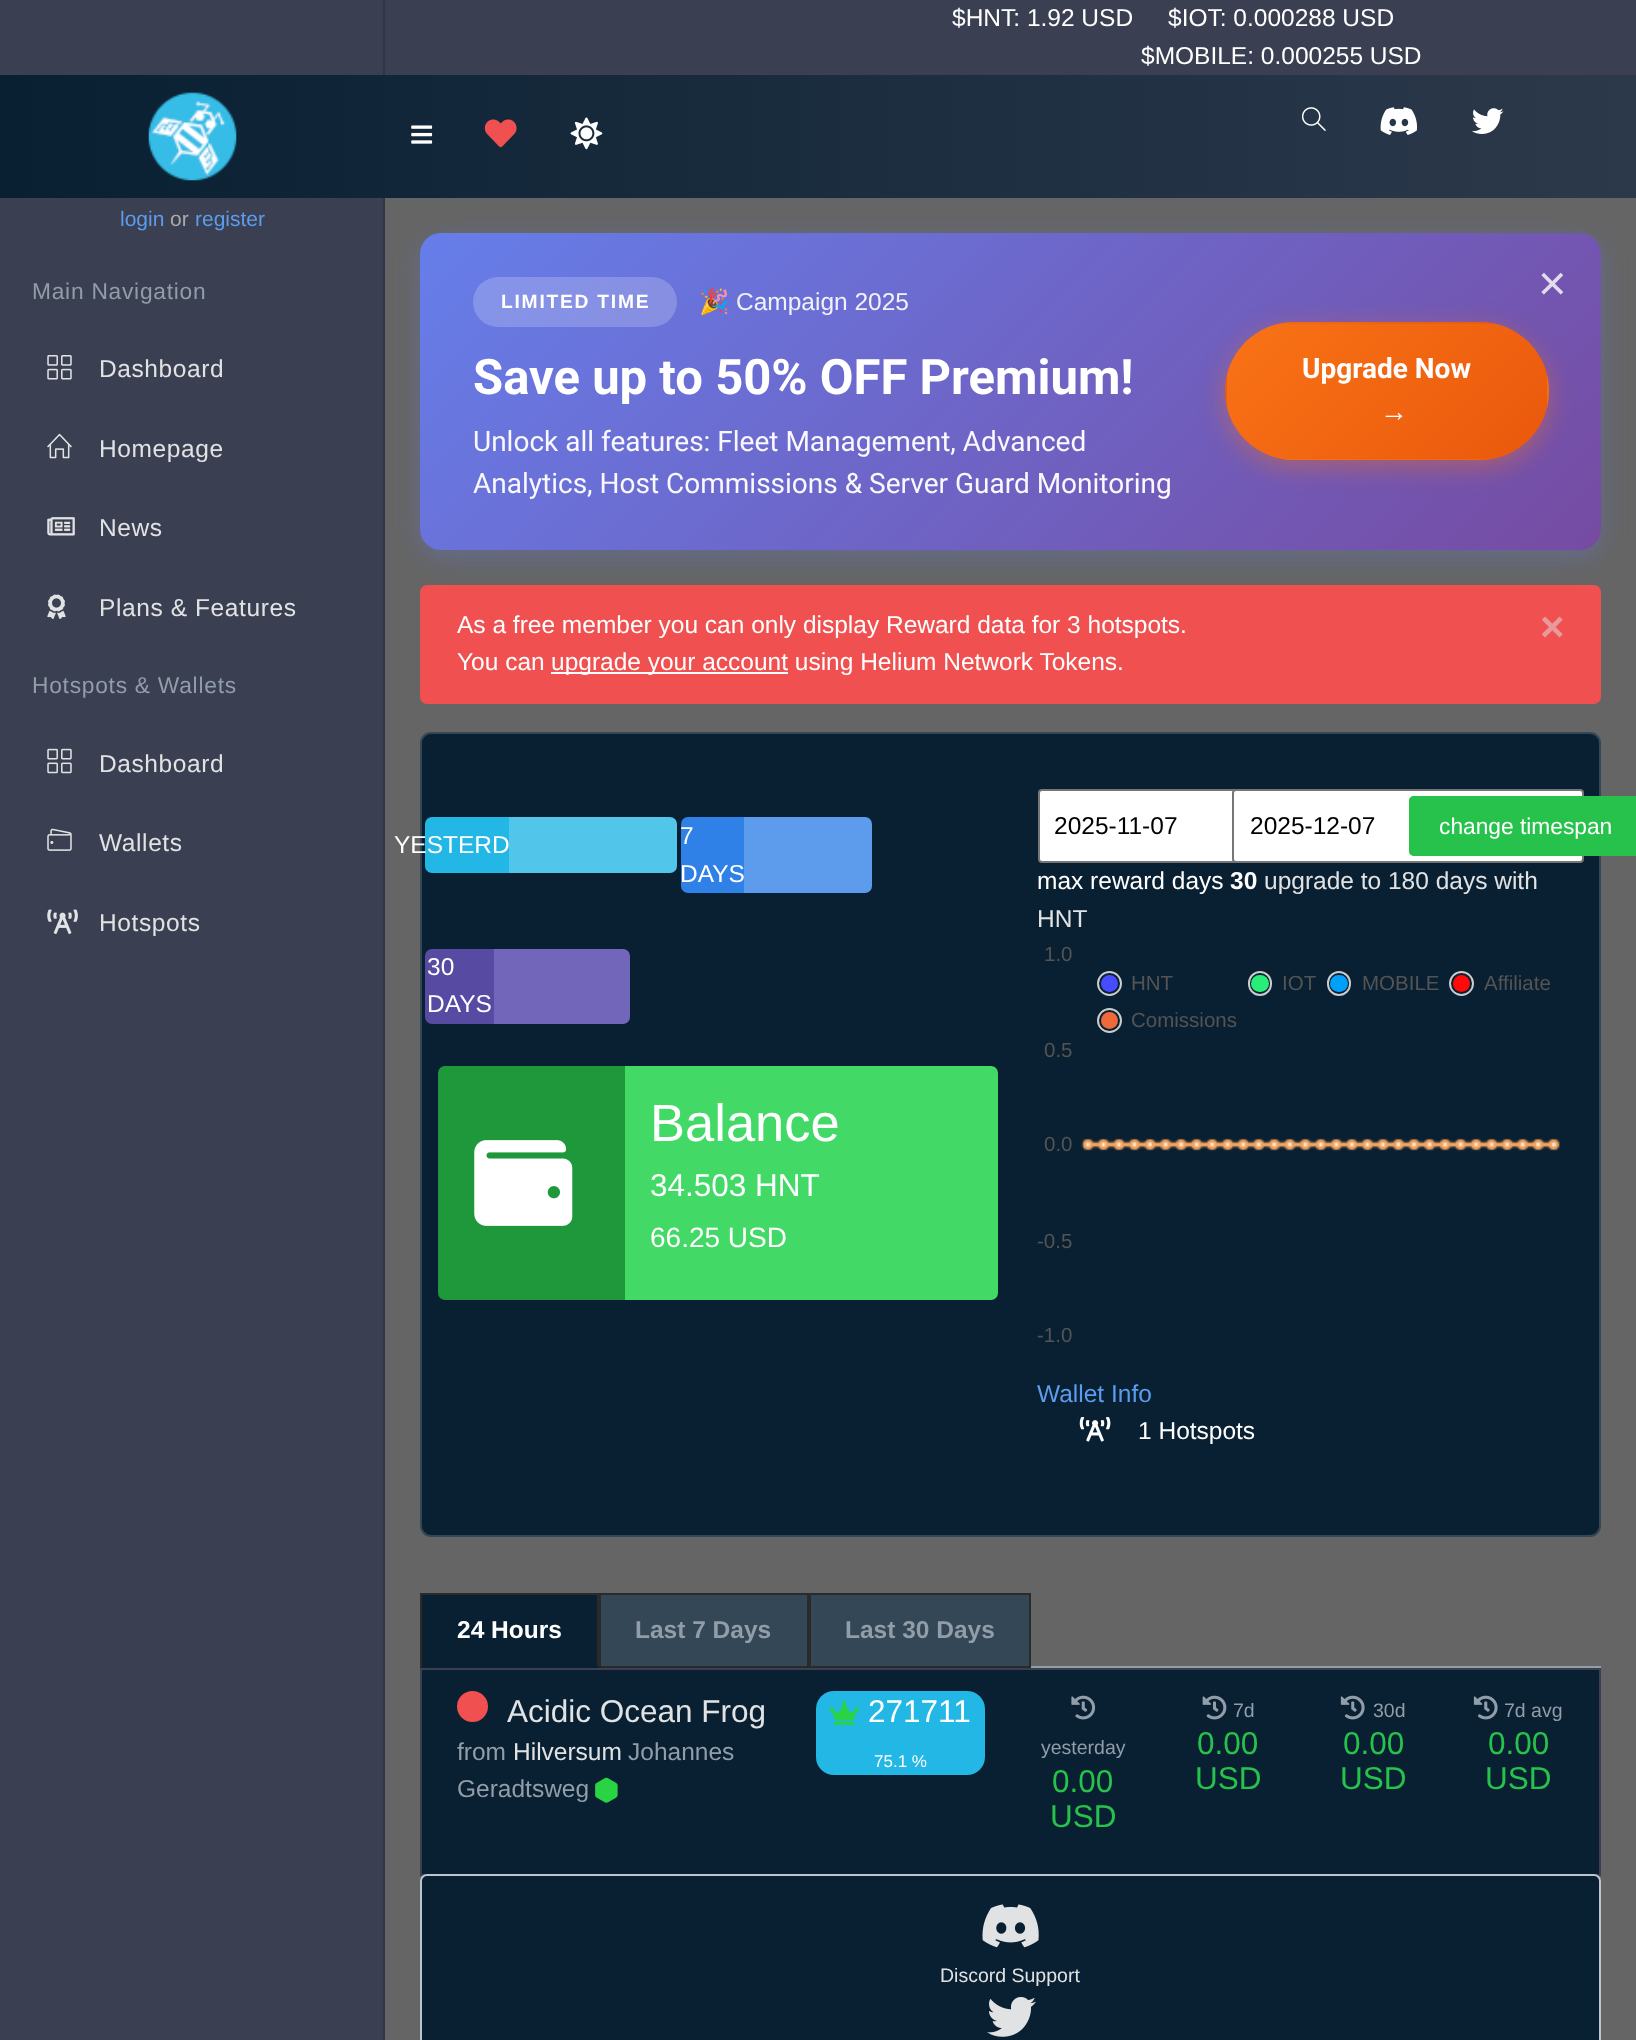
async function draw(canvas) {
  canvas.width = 1636
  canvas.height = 2040
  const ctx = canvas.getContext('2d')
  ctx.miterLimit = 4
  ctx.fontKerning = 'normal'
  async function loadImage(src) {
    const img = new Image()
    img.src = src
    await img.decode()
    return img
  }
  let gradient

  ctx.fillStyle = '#3a3f51'
  ctx.fillRect(0, 0, 1636, 2040)
  ctx.font = '24.5px Liberation Sans'
  ctx.fillStyle = '#fff'
  ctx.fillText('$HNT: 1.92 USD', 952, 26)
  ctx.fillText('$IOT: 0.000288 USD', 1168, 26)
  ctx.fillText('$MOBILE: 0.000255 USD', 1141, 64)
  ctx.fillStyle = '#656565'
  ctx.fillRect(385, 198, 1251, 1842)
  ctx.fillStyle = '#667eea4d'
  ctx.filter = 'blur(13px)'
  ctx.beginPath()
  ctx.roundRect(420, 240, 1181, 317, 21)
  ctx.fill()
  ctx.filter = 'none'
  ctx.fillStyle = '#313645'
  ctx.fillRect(383, 0, 2, 2040)
  gradient = ctx.createLinearGradient(0, 137, 1636, 136)
  gradient.addColorStop(0, '#082032')
  gradient.addColorStop(1, '#2c394b')
  ctx.fillStyle = gradient
  ctx.fillRect(0, 75, 1636, 123)
  ctx.drawImage(await loadImage('image0.png'), 148, 92, 89, 89)
  ctx.drawImage(await loadImage('image1.png'), 411, 125, 22, 19)
  ctx.drawImage(await loadImage('image2.png'), 484, 119, 33, 29)
  ctx.drawImage(await loadImage('image3.png'), 570, 117, 33, 33)
  ctx.drawImage(await loadImage('image4.png'), 1301, 107, 25, 24)
  ctx.drawImage(await loadImage('image5.png'), 1380, 107, 37, 28)
  ctx.drawImage(await loadImage('image6.png'), 1472, 108, 32, 26)
  ctx.font = '21px Liberation Sans'
  ctx.fillStyle = '#5d9cec'
  ctx.fillText('login', 120, 226)
  ctx.fillStyle = '#aaa'
  ctx.fillText('or', 170, 226)
  ctx.fillStyle = '#5d9cec'
  ctx.fillText('register', 195, 226)
  ctx.letterSpacing = '0.75px'
  ctx.font = '22.75px Liberation Sans'
  ctx.fillStyle = '#919da8'
  ctx.fillText('Main Navigation', 32, 299)
  ctx.drawImage(await loadImage('image7.png'), 47, 355, 25, 25)
  ctx.letterSpacing = '0.6px'
  ctx.font = '24.5px Liberation Sans'
  ctx.fillStyle = '#e1e2e3'
  ctx.fillText('Dashboard', 99, 377)
  ctx.drawImage(await loadImage('image8.png'), 47, 433, 25, 26)
  ctx.fillText('Homepage', 99, 457)
  ctx.drawImage(await loadImage('image9.png'), 47, 517, 28, 19)
  ctx.fillText('News', 99, 536)
  ctx.drawImage(await loadImage('image10.png'), 47, 594, 19, 25)
  ctx.fillText('Plans & Features', 99, 616)
  ctx.letterSpacing = '0.75px'
  ctx.font = '22.75px Liberation Sans'
  ctx.fillStyle = '#919da8'
  ctx.fillText('Hotspots & Wallets', 32, 693)
  ctx.drawImage(await loadImage('image11.png'), 47, 748, 25, 26)
  ctx.letterSpacing = '0.6px'
  ctx.font = '24.5px Liberation Sans'
  ctx.fillStyle = '#e1e2e3'
  ctx.fillText('Dashboard', 99, 772)
  ctx.drawImage(await loadImage('image12.png'), 47, 828, 25, 23)
  ctx.fillText('Wallets', 99, 851)
  ctx.drawImage(await loadImage('image13.png'), 47, 909, 31, 25)
  ctx.fillText('Hotspots', 99, 931)
  gradient = ctx.createLinearGradient(636, 17, 1385, 766)
  gradient.addColorStop(0, '#667eea')
  gradient.addColorStop(1, '#764ba2')
  ctx.fillStyle = gradient
  ctx.beginPath()
  ctx.roundRect(420, 233, 1181, 317, 21)
  ctx.fill()
  ctx.letterSpacing = '0px'
  ctx.font = '49px Liberation Sans'
  ctx.fillStyle = '#e3ddef'
  ctx.fillText('×', 1538, 300)
  ctx.fillStyle = '#ffffff33'
  ctx.beginPath()
  ctx.roundRect(473, 277, 204, 50, 25)
  ctx.fill()
  ctx.letterSpacing = '1.75px'
  ctx.font = 'bold 19.25px Liberation Sans'
  ctx.fillStyle = '#fff'
  ctx.fillText('LIMITED TIME', 501, 308)
  ctx.letterSpacing = '0px'
  ctx.font = '24.5px Noto Color Emoji'
  ctx.fillStyle = '#f0f1fb'
  ctx.fillText('🎉', 699, 310)
  ctx.font = '24.5px Liberation Sans'
  ctx.fillText('Campaign 2025', 736, 310)
  ctx.font = 'bold 49px Roboto'
  ctx.fillStyle = '#fff'
  ctx.fillText('Save up to 50% OFF Premium!', 473, 394)
  ctx.font = '28px Roboto'
  ctx.fillStyle = '#f8f8fd'
  ctx.fillText('Unlock all features: Fleet Management, Advanced', 473, 451)
  ctx.fillText('Analytics, Host Commissions & Server Guard Monitoring', 473, 493)
  ctx.fillStyle = '#f9731666'
  ctx.filter = 'blur(13px)'
  ctx.beginPath()
  ctx.roundRect(1225, 329, 324, 138, 69)
  ctx.fill()
  ctx.filter = 'none'
  ctx.save()
  ctx.beginPath()
  ctx.roundRect(1225, 322, 324, 138, 69)
  ctx.clip()
  gradient = ctx.createLinearGradient(1273, 143, 1501, 370)
  gradient.addColorStop(0, '#f97316')
  gradient.addColorStop(1, '#ea580c')
  ctx.fillStyle = gradient
  ctx.fillRect(1277, 322, 220, 2)
  gradient = ctx.createLinearGradient(953, 277, 1180, 505)
  gradient.addColorStop(0, '#f97316')
  gradient.addColorStop(1, '#ea580c')
  ctx.fillStyle = gradient
  ctx.fillRect(1225, 374, 2, 34)
  gradient = ctx.createLinearGradient(1273, 277, 1501, 505)
  gradient.addColorStop(0, '#f97316')
  gradient.addColorStop(1, '#ea580c')
  ctx.fillStyle = gradient
  ctx.fillRect(1227, 324, 320, 135)
  gradient = ctx.createLinearGradient(1593, 277, 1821, 505)
  gradient.addColorStop(0, '#f97316')
  gradient.addColorStop(1, '#ea580c')
  ctx.fillStyle = gradient
  ctx.fillRect(1547, 374, 2, 34)
  gradient = ctx.createLinearGradient(1273, 412, 1501, 640)
  gradient.addColorStop(0, '#f97316')
  gradient.addColorStop(1, '#ea580c')
  ctx.fillStyle = gradient
  ctx.fillRect(1282, 459, 210, 1)
  ctx.restore()
  ctx.font = 'bold 28px Roboto'
  ctx.fillStyle = '#fff'
  ctx.fillText('Upgrade Now', 1302, 378)
  ctx.font = 'bold 28px Liberation Sans'
  ctx.fillText('→', 1380, 421)
  ctx.fillStyle = '#f05050'
  ctx.beginPath()
  ctx.roundRect(421, 586, 1179, 117, 6)
  ctx.fill()
  ctx.strokeStyle = '#f05050'
  ctx.lineWidth = 2
  ctx.stroke()
  ctx.font = '24.5px Liberation Sans'
  ctx.fillStyle = '#fff'
  ctx.fillText('As a free member you can only display Reward data for 3 hotspots.', 457, 633)
  ctx.font = 'bold 42px Liberation Sans'
  ctx.fillStyle = '#e9999a'
  ctx.fillText('×', 1540, 641)
  ctx.font = '24.5px Liberation Sans'
  ctx.fillStyle = '#fff'
  ctx.fillText('You can', 457, 670)
  ctx.fillRect(551, 672, 237, 2)
  ctx.fillText('upgrade your account using Helium Network Tokens.', 551, 670)
  ctx.fillStyle = '#082032'
  ctx.beginPath()
  ctx.roundRect(421, 733, 1179, 803, 10)
  ctx.fill()
  ctx.strokeStyle = '#334756'
  ctx.stroke()
  ctx.fillStyle = '#23b7e5'
  ctx.beginPath()
  ctx.roundRect(425, 817, 84, 56, [7, 0, 0, 7])
  ctx.fill()
  ctx.fillStyle = '#fff'
  ctx.fillText('YESTERD', 394, 853)
  ctx.fillStyle = '#51c6ea'
  ctx.beginPath()
  ctx.roundRect(509, 817, 168, 56, [0, 7, 7, 0])
  ctx.fill()
  ctx.fillStyle = '#2f80e7'
  ctx.beginPath()
  ctx.roundRect(681, 817, 63, 76, [7, 0, 0, 7])
  ctx.fill()
  ctx.fillStyle = '#fff'
  ctx.fillText('7', 680, 844)
  ctx.fillText('DAYS', 680, 882)
  ctx.fillStyle = '#5d9cec'
  ctx.beginPath()
  ctx.roundRect(744, 817, 128, 76, [0, 7, 7, 0])
  ctx.fill()
  ctx.fillStyle = '#564aa3'
  ctx.beginPath()
  ctx.roundRect(425, 949, 69, 75, [7, 0, 0, 7])
  ctx.fill()
  ctx.fillStyle = '#fff'
  ctx.fillText('30', 427, 975)
  ctx.fillText('DAYS', 427, 1012)
  ctx.fillStyle = '#7266ba'
  ctx.beginPath()
  ctx.roundRect(494, 949, 136, 75, [0, 7, 7, 0])
  ctx.fill()
  ctx.fillStyle = '#1e983b'
  ctx.beginPath()
  ctx.roundRect(438, 1066, 187, 234, [7, 0, 0, 7])
  ctx.fill()
  ctx.drawImage(await loadImage('image14.png'), 474, 1140, 99, 86)
  ctx.fillStyle = '#43d967'
  ctx.beginPath()
  ctx.roundRect(625, 1066, 373, 234, [0, 7, 7, 0])
  ctx.fill()
  ctx.font = '52.5px Liberation Sans'
  ctx.fillStyle = '#fff'
  ctx.fillText('Balance', 650, 1141)
  ctx.font = '31.5px Liberation Sans'
  ctx.fillText('34.503 HNT', 650, 1196)
  ctx.font = '28px Liberation Sans'
  ctx.fillText('66.25 USD', 650, 1247)
  ctx.beginPath()
  ctx.roundRect(1039, 790, 350, 72, 3)
  ctx.fill()
  ctx.strokeStyle = '#767676'
  ctx.stroke()
  ctx.font = '24.5px Liberation Sans'
  ctx.fillStyle = '#000'
  ctx.fillText('2025-11-07', 1054, 834)
  ctx.fillStyle = '#fff'
  ctx.beginPath()
  ctx.roundRect(1233, 790, 350, 72, 3)
  ctx.fill()
  ctx.stroke()
  ctx.fillStyle = '#000'
  ctx.fillText('2025-12-07', 1250, 834)
  ctx.fillStyle = '#27c24c'
  ctx.beginPath()
  ctx.roundRect(1409, 796, 227, 60, [5, 0, 0, 5])
  ctx.fill()
  ctx.beginPath()
  ctx.roundRect(1410, 797, 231, 58, 4)
  ctx.strokeStyle = '#27c24c'
  ctx.stroke()
  ctx.font = '22.75px Liberation Sans'
  ctx.fillStyle = '#fff'
  ctx.fillText('change timespan', 1439, 834)
  ctx.font = '24.5px Liberation Sans'
  ctx.fillText('max reward days', 1037, 889)
  ctx.font = 'bold 24.5px Liberation Sans'
  ctx.fillText('30', 1230, 889)
  ctx.font = '24.5px Liberation Sans'
  ctx.fillStyle = '#e1e2e3'
  ctx.fillText('upgrade to 180 days with', 1264, 889)
  ctx.fillText('HNT', 1037, 927)
  ctx.font = '20.5px Liberation Sans'
  ctx.fillStyle = '#545454'
  ctx.fillText('1.0', 1044, 961)
  ctx.fillText('0.5', 1044, 1057)
  ctx.fillText('0.0', 1044, 1151)
  ctx.fillText('-0.5', 1037, 1248)
  ctx.fillText('-1.0', 1037, 1342)
  ctx.beginPath()
  ctx.arc(1109.5, 983.5, 11.5, 0, 2 * Math.PI)
  ctx.strokeStyle = '#ccc'
  ctx.stroke()
  ctx.fillStyle = '#474dff'
  ctx.beginPath()
  ctx.arc(1109.5, 983.5, 8.5, 0, 2 * Math.PI)
  ctx.fill()
  ctx.fillStyle = '#545454'
  ctx.fillText('HNT', 1131, 990)
  ctx.beginPath()
  ctx.roundRect(1249, 972, 22, 23, 11)
  ctx.stroke()
  ctx.fillStyle = '#27ee76'
  ctx.beginPath()
  ctx.roundRect(1251, 975, 18, 17, 8.5)
  ctx.fill()
  ctx.fillStyle = '#545454'
  ctx.fillText('IOT', 1282, 990)
  ctx.beginPath()
  ctx.roundRect(1328, 972, 22, 23, 11)
  ctx.stroke()
  ctx.fillStyle = '#009ff9'
  ctx.beginPath()
  ctx.roundRect(1330, 975, 18, 17, 8.5)
  ctx.fill()
  ctx.fillStyle = '#545454'
  ctx.fillText('MOBILE', 1362, 990)
  ctx.beginPath()
  ctx.arc(1461.5, 983.5, 11.5, 0, 2 * Math.PI)
  ctx.stroke()
  ctx.fillStyle = '#ff0909'
  ctx.beginPath()
  ctx.arc(1461.5, 983.5, 8.5, 0, 2 * Math.PI)
  ctx.fill()
  ctx.fillStyle = '#545454'
  ctx.fillText('Affiliate', 1484, 990)
  ctx.beginPath()
  ctx.arc(1109.5, 1020.5, 11.5, 0, 2 * Math.PI)
  ctx.stroke()
  ctx.fillStyle = '#f0693a'
  ctx.beginPath()
  ctx.arc(1109.5, 1020.5, 8.5, 0, 2 * Math.PI)
  ctx.fill()
  ctx.fillStyle = '#545454'
  ctx.fillText('Comissions', 1131, 1027)
  ctx.drawImage(await loadImage('image15.png'), 1081, 1138, 479, 13)
  ctx.font = '24.5px Liberation Sans'
  ctx.fillStyle = '#5d9cec'
  ctx.fillText('Wallet Info', 1037, 1402)
  ctx.drawImage(await loadImage('image16.png'), 1079, 1417, 32, 25)
  ctx.fillStyle = '#fff'
  ctx.fillText('1 Hotspots', 1138, 1439)
  ctx.fillStyle = '#919da8'
  ctx.fillRect(1031, 1666, 570, 2)
  ctx.fillStyle = '#082032'
  ctx.fillRect(422, 1595, 175, 71)
  ctx.fillStyle = '#2a2a2a'
  ctx.fillRect(420, 1593, 179, 2)
  ctx.fillRect(597, 1593, 2, 75)
  ctx.fillStyle = '#082032'
  ctx.fillRect(420, 1666, 179, 2)
  ctx.fillStyle = '#2a2a2a'
  ctx.fillRect(420, 1593, 2, 75)
  ctx.font = 'bold 24.5px Liberation Sans'
  ctx.fillStyle = '#fff'
  ctx.fillText('24 Hours', 457, 1638)
  ctx.fillStyle = '#334756'
  ctx.beginPath()
  ctx.rect(600, 1594, 208, 73)
  ctx.fill()
  ctx.strokeStyle = '#2a2a2a'
  ctx.stroke()
  ctx.fillStyle = '#919da8'
  ctx.fillText('Last 7 Days', 635, 1638)
  ctx.fillStyle = '#334756'
  ctx.beginPath()
  ctx.rect(810, 1594, 220, 73)
  ctx.fill()
  ctx.stroke()
  ctx.fillStyle = '#919da8'
  ctx.fillText('Last 30 Days', 845, 1638)
  ctx.fillStyle = '#082032'
  ctx.beginPath()
  ctx.rect(421, 1669, 1179, 206)
  ctx.fill()
  ctx.strokeStyle = '#3a3f51'
  ctx.stroke()
  ctx.fillStyle = '#f05050'
  ctx.beginPath()
  ctx.arc(472.5, 1706.5, 15.5, 0, 2 * Math.PI)
  ctx.fill()
  ctx.font = '31.5px Liberation Sans'
  ctx.fillStyle = '#e1e2e3'
  ctx.fillText('Acidic Ocean Frog', 507, 1722)
  ctx.fillStyle = '#23b7e5'
  ctx.beginPath()
  ctx.roundRect(816, 1691, 169, 84, 18)
  ctx.fill()
  ctx.drawImage(await loadImage('image17.png'), 829, 1701, 30, 24)
  ctx.fillStyle = '#fff'
  ctx.fillText('271711', 868, 1722)
  ctx.font = '17px Liberation Sans'
  ctx.fillText('75.1 %', 874, 1767)
  ctx.font = '24.5px Liberation Sans'
  ctx.fillStyle = '#919da8'
  ctx.fillText('from', 457, 1760)
  ctx.fillStyle = '#e1e2e3'
  ctx.fillText('Hilversum', 513, 1760)
  ctx.fillStyle = '#919da8'
  ctx.fillText('Johannes', 628, 1760)
  ctx.fillText('Geradtsweg', 457, 1797)
  ctx.drawImage(await loadImage('image18.png'), 595, 1777, 23, 26)
  ctx.drawImage(await loadImage('image19.png'), 1071, 1695, 25, 25)
  ctx.font = '19.5px Liberation Sans'
  ctx.fillText('yesterday', 1041, 1754)
  ctx.font = '31.5px Liberation Sans'
  ctx.fillStyle = '#27c24c'
  ctx.fillText('0.00', 1052, 1792)
  ctx.fillText('USD', 1050, 1827)
  ctx.drawImage(await loadImage('image20.png'), 1202, 1695, 25, 25)
  ctx.font = '19.5px Liberation Sans'
  ctx.fillStyle = '#919da8'
  ctx.fillText('7d', 1233, 1717)
  ctx.font = '31.5px Liberation Sans'
  ctx.fillStyle = '#27c24c'
  ctx.fillText('0.00', 1197, 1754)
  ctx.fillText('USD', 1195, 1789)
  ctx.drawImage(await loadImage('image21.png'), 1340, 1695, 25, 25)
  ctx.font = '19.5px Liberation Sans'
  ctx.fillStyle = '#919da8'
  ctx.fillText('30d', 1373, 1717)
  ctx.font = '31.5px Liberation Sans'
  ctx.fillStyle = '#27c24c'
  ctx.fillText('0.00', 1343, 1754)
  ctx.fillText('USD', 1340, 1789)
  ctx.drawImage(await loadImage('image21.png'), 1473, 1695, 25, 25)
  ctx.font = '19.5px Liberation Sans'
  ctx.fillStyle = '#919da8'
  ctx.fillText('7d avg', 1504, 1717)
  ctx.font = '31.5px Liberation Sans'
  ctx.fillStyle = '#27c24c'
  ctx.fillText('0.00', 1488, 1754)
  ctx.fillText('USD', 1485, 1789)
  ctx.fillStyle = '#082032'
  ctx.beginPath()
  ctx.roundRect(421, 1875, 1179, 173, 6)
  ctx.fill()
  ctx.strokeStyle = '#bdc6d0'
  ctx.stroke()
  ctx.drawImage(await loadImage('image22.png'), 982, 1904, 57, 44)
  ctx.font = '19.5px Liberation Sans'
  ctx.fillStyle = '#e1e2e3'
  ctx.fillText('Discord Support', 940, 1982)
  ctx.drawImage(await loadImage('image23.png'), 987, 1997, 49, 40)
}

draw(document.querySelector('canvas'))
